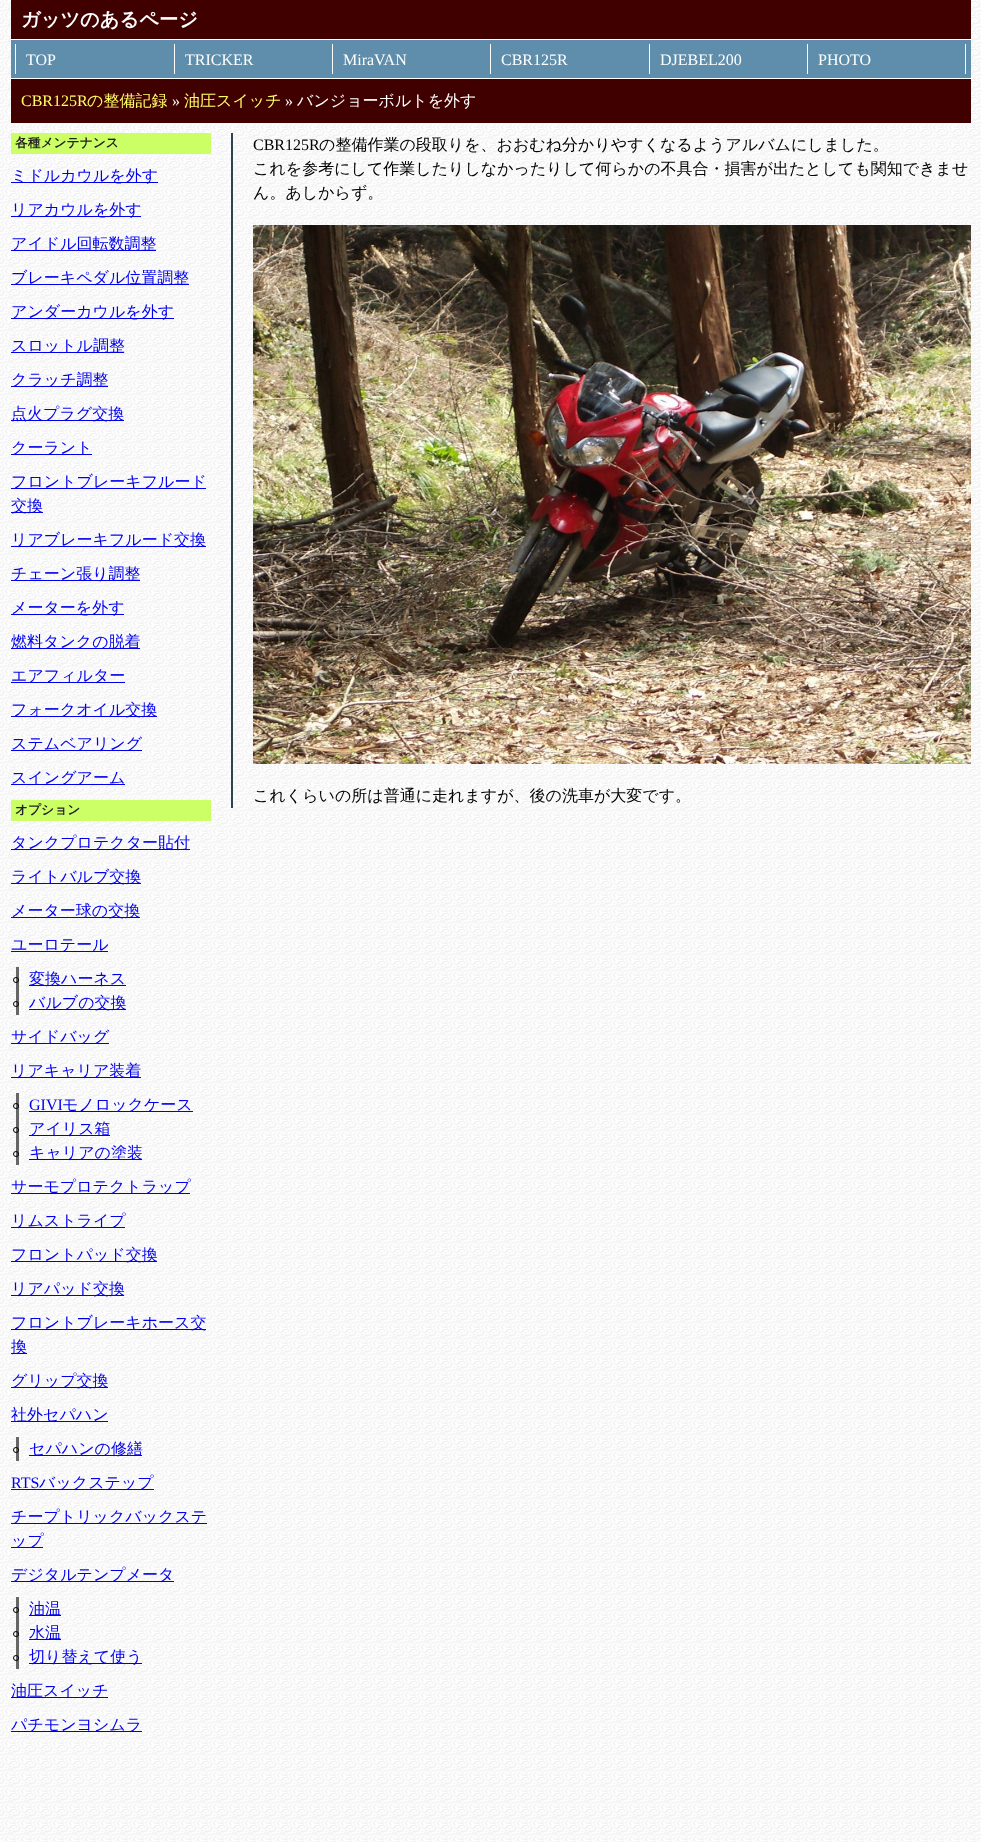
async function draw(canvas) {
  canvas.width = 981
  canvas.height = 1842
  const ctx = canvas.getContext('2d')
  ctx.miterLimit = 4
  ctx.fontKerning = 'normal'
  async function loadImage(src) {
    const img = new Image()
    img.src = src
    await img.decode()
    return img
  }

  ctx.fillStyle = '#fff'
  ctx.fillRect(0, 0, 981, 1842)
  ctx.drawImage(await loadImage('image0.png'), 0, 0, 981, 1842)
  ctx.fillStyle = '#400000'
  ctx.fillRect(11, 0, 960, 123)
  ctx.font = 'bold 19.25px WenQuanYi Zen Hei'
  ctx.fillStyle = '#fff'
  ctx.fillText('ガッツのあるページ', 21, 26)
  ctx.fillStyle = '#5e8eab'
  ctx.fillRect(11, 40, 960, 38)
  ctx.fillStyle = '#fff'
  ctx.fillRect(11, 39, 960, 1)
  ctx.fillRect(15, 44, 1, 30)
  ctx.font = '16px Liberation Serif'
  ctx.fillText('TOP', 26, 65)
  ctx.fillRect(174, 44, 1, 30)
  ctx.fillText('TRICKER', 185, 65)
  ctx.fillRect(332, 44, 1, 30)
  ctx.fillText('MiraVAN', 343, 65)
  ctx.fillRect(490, 44, 1, 30)
  ctx.fillText('CBR125R', 501, 65)
  ctx.fillRect(649, 44, 1, 30)
  ctx.fillText('DJEBEL200', 660, 65)
  ctx.fillRect(965, 44, 1, 30)
  ctx.fillRect(807, 44, 1, 30)
  ctx.fillText('PHOTO', 818, 65)
  ctx.fillRect(11, 78, 960, 1)
  ctx.fillStyle = '#ff6'
  ctx.fillText('CBR125R', 21, 106)
  ctx.font = '500 16px WenQuanYi Zen Hei'
  ctx.fillText('の整備記録', 87, 106)
  ctx.font = '16px Liberation Serif'
  ctx.fillStyle = '#fff'
  ctx.fillText('»', 172, 106)
  ctx.font = '500 16px WenQuanYi Zen Hei'
  ctx.fillStyle = '#ff6'
  ctx.fillText('油圧スイッチ', 184, 106)
  ctx.font = '16px Liberation Serif'
  ctx.fillStyle = '#fff'
  ctx.fillText('»', 285, 106)
  ctx.font = '500 16px WenQuanYi Zen Hei'
  ctx.fillText('バンジョーボルトを外す', 297, 106)
  ctx.fillStyle = '#cf6'
  ctx.fillRect(11, 133, 200, 21)
  ctx.font = 'bold 12.75px WenQuanYi Zen Hei'
  ctx.fillStyle = '#222'
  ctx.fillText('各種メンテナンス', 15, 147)
  ctx.fillStyle = '#00e'
  ctx.fillRect(11, 182, 147, 1)
  ctx.font = '500 16px WenQuanYi Zen Hei'
  ctx.fillText('ミドルカウルを外す', 11, 181)
  ctx.fillRect(11, 216, 130, 1)
  ctx.fillText('リアカウルを外す', 11, 215)
  ctx.fillRect(11, 250, 145, 1)
  ctx.fillText('アイドル回転数調整', 11, 249)
  ctx.fillRect(11, 284, 178, 1)
  ctx.fillText('ブレーキペダル位置調整', 11, 283)
  ctx.fillRect(11, 318, 163, 1)
  ctx.fillText('アンダーカウルを外す', 11, 317)
  ctx.fillRect(11, 352, 113, 1)
  ctx.fillText('スロットル調整', 11, 351)
  ctx.fillRect(11, 386, 97, 1)
  ctx.fillText('クラッチ調整', 11, 385)
  ctx.fillRect(11, 420, 113, 1)
  ctx.fillText('点火プラグ交換', 11, 419)
  ctx.fillRect(11, 454, 81, 1)
  ctx.fillText('クーラント', 11, 453)
  ctx.fillRect(11, 488, 195, 1)
  ctx.fillText('フロントブレーキフルード', 11, 487)
  ctx.fillRect(11, 512, 32, 1)
  ctx.fillText('交換', 11, 511)
  ctx.fillRect(11, 546, 195, 1)
  ctx.fillText('リアブレーキフルード交換', 11, 545)
  ctx.fillRect(11, 580, 129, 1)
  ctx.fillText('チェーン張り調整', 11, 579)
  ctx.fillRect(11, 614, 113, 1)
  ctx.fillText('メーターを外す', 11, 613)
  ctx.fillRect(11, 648, 129, 1)
  ctx.fillText('燃料タンクの脱着', 11, 647)
  ctx.fillRect(11, 682, 114, 1)
  ctx.fillText('エアフィルター', 11, 681)
  ctx.fillRect(11, 716, 146, 1)
  ctx.fillText('フォークオイル交換', 11, 715)
  ctx.fillRect(11, 750, 131, 1)
  ctx.fillText('ステムベアリング', 11, 749)
  ctx.fillRect(11, 784, 114, 1)
  ctx.fillText('スイングアーム', 11, 783)
  ctx.fillStyle = '#cf6'
  ctx.fillRect(11, 800, 200, 21)
  ctx.font = 'bold 12.75px WenQuanYi Zen Hei'
  ctx.fillStyle = '#222'
  ctx.fillText('オプション', 15, 814)
  ctx.fillStyle = '#00e'
  ctx.fillRect(11, 849, 179, 1)
  ctx.font = '500 16px WenQuanYi Zen Hei'
  ctx.fillText('タンクプロテクター貼付', 11, 848)
  ctx.fillRect(11, 883, 130, 1)
  ctx.fillText('ライトバルブ交換', 11, 882)
  ctx.fillRect(11, 917, 129, 1)
  ctx.fillText('メーター球の交換', 11, 916)
  ctx.fillRect(11, 951, 97, 1)
  ctx.fillText('ユーロテール', 11, 950)
  ctx.fillStyle = '#666'
  ctx.fillRect(16, 967, 3, 48)
  ctx.beginPath()
  ctx.arc(16, 980, 2.5, 0, 2 * Math.PI)
  ctx.strokeStyle = '#000'
  ctx.stroke()
  ctx.fillStyle = '#00e'
  ctx.fillRect(29, 985, 97, 1)
  ctx.fillText('変換ハーネス', 29, 984)
  ctx.beginPath()
  ctx.arc(16, 1004, 2.5, 0, 2 * Math.PI)
  ctx.stroke()
  ctx.fillRect(29, 1009, 97, 1)
  ctx.fillText('バルブの交換', 29, 1008)
  ctx.fillRect(11, 1043, 98, 1)
  ctx.fillText('サイドバッグ', 11, 1042)
  ctx.fillRect(11, 1077, 130, 1)
  ctx.fillText('リアキャリア装着', 11, 1076)
  ctx.fillStyle = '#666'
  ctx.fillRect(16, 1093, 3, 72)
  ctx.beginPath()
  ctx.arc(16, 1106, 2.5, 0, 2 * Math.PI)
  ctx.stroke()
  ctx.font = '16px Liberation Serif'
  ctx.fillStyle = '#00e'
  ctx.fillText('GIVI', 29, 1110)
  ctx.fillRect(29, 1111, 164, 1)
  ctx.font = '500 16px WenQuanYi Zen Hei'
  ctx.fillText('モノロックケース', 62, 1110)
  ctx.beginPath()
  ctx.arc(16, 1130, 2.5, 0, 2 * Math.PI)
  ctx.stroke()
  ctx.fillRect(29, 1135, 81, 1)
  ctx.fillText('アイリス箱', 29, 1134)
  ctx.beginPath()
  ctx.arc(16, 1154, 2.5, 0, 2 * Math.PI)
  ctx.stroke()
  ctx.fillRect(29, 1159, 113, 1)
  ctx.fillText('キャリアの塗装', 29, 1158)
  ctx.fillRect(11, 1193, 179, 1)
  ctx.fillText('サーモプロテクトラップ', 11, 1192)
  ctx.fillRect(11, 1227, 114, 1)
  ctx.fillText('リムストライプ', 11, 1226)
  ctx.fillRect(11, 1261, 146, 1)
  ctx.fillText('フロントパッド交換', 11, 1260)
  ctx.fillRect(11, 1295, 113, 1)
  ctx.fillText('リアパッド交換', 11, 1294)
  ctx.fillRect(11, 1329, 195, 1)
  ctx.fillText('フロントブレーキホース交', 11, 1328)
  ctx.fillRect(11, 1353, 16, 1)
  ctx.save()
  ctx.beginPath()
  ctx.rect(11, 123, 960, 1664)
  ctx.clip()
  ctx.fillText('換', 11, 1352)
  ctx.restore()
  ctx.fillRect(11, 1387, 97, 1)
  ctx.fillText('グリップ交換', 11, 1386)
  ctx.fillRect(11, 1421, 97, 1)
  ctx.fillText('社外セパハン', 11, 1420)
  ctx.fillStyle = '#666'
  ctx.fillRect(16, 1437, 3, 24)
  ctx.beginPath()
  ctx.arc(16, 1450, 2.5, 0, 2 * Math.PI)
  ctx.stroke()
  ctx.fillStyle = '#00e'
  ctx.fillRect(29, 1455, 113, 1)
  ctx.fillText('セパハンの修繕', 29, 1454)
  ctx.font = '16px Liberation Serif'
  ctx.fillText('RTS', 11, 1488)
  ctx.fillRect(11, 1489, 143, 1)
  ctx.font = '500 16px WenQuanYi Zen Hei'
  ctx.fillText('バックステップ', 39, 1488)
  ctx.fillRect(11, 1523, 196, 1)
  ctx.fillText('チープトリックバックステ', 11, 1522)
  ctx.fillRect(11, 1547, 32, 1)
  ctx.fillText('ップ', 11, 1546)
  ctx.fillRect(11, 1581, 163, 1)
  ctx.fillText('デジタルテンプメータ', 11, 1580)
  ctx.fillStyle = '#666'
  ctx.fillRect(16, 1597, 3, 72)
  ctx.beginPath()
  ctx.arc(16, 1610, 2.5, 0, 2 * Math.PI)
  ctx.stroke()
  ctx.fillStyle = '#00e'
  ctx.fillRect(29, 1615, 32, 1)
  ctx.fillText('油温', 29, 1614)
  ctx.beginPath()
  ctx.arc(16, 1634, 2.5, 0, 2 * Math.PI)
  ctx.stroke()
  ctx.fillRect(29, 1639, 32, 1)
  ctx.fillText('水温', 29, 1638)
  ctx.beginPath()
  ctx.arc(16, 1658, 2.5, 0, 2 * Math.PI)
  ctx.stroke()
  ctx.fillRect(29, 1663, 113, 1)
  ctx.fillText('切り替えて使う', 29, 1662)
  ctx.fillRect(11, 1697, 97, 1)
  ctx.fillText('油圧スイッチ', 11, 1696)
  ctx.fillRect(11, 1731, 131, 1)
  ctx.fillText('パチモンヨシムラ', 11, 1730)
  ctx.fillStyle = '#2d444f'
  ctx.fillRect(231, 133, 2, 675)
  ctx.font = '16px Liberation Serif'
  ctx.fillStyle = '#000'
  ctx.fillText('CBR125R', 253, 150)
  ctx.font = '500 16px WenQuanYi Zen Hei'
  ctx.fillText('の整備作業の段取りを、おおむね分かりやすくなるようアルバムにしました。', 319, 150)
  ctx.fillText('これを参考にして作業したりしなかったりして何らかの不具合・損害が出たとしても関知できませ', 253, 174)
  ctx.fillText('ん。あしからず。', 253, 198)
  ctx.drawImage(await loadImage('image1.png'), 253, 225, 718, 539)
  ctx.fillText('これくらいの所は普通に走れますが、後の洗車が大変です。', 253, 801)
}

draw(document.querySelector('canvas'))
